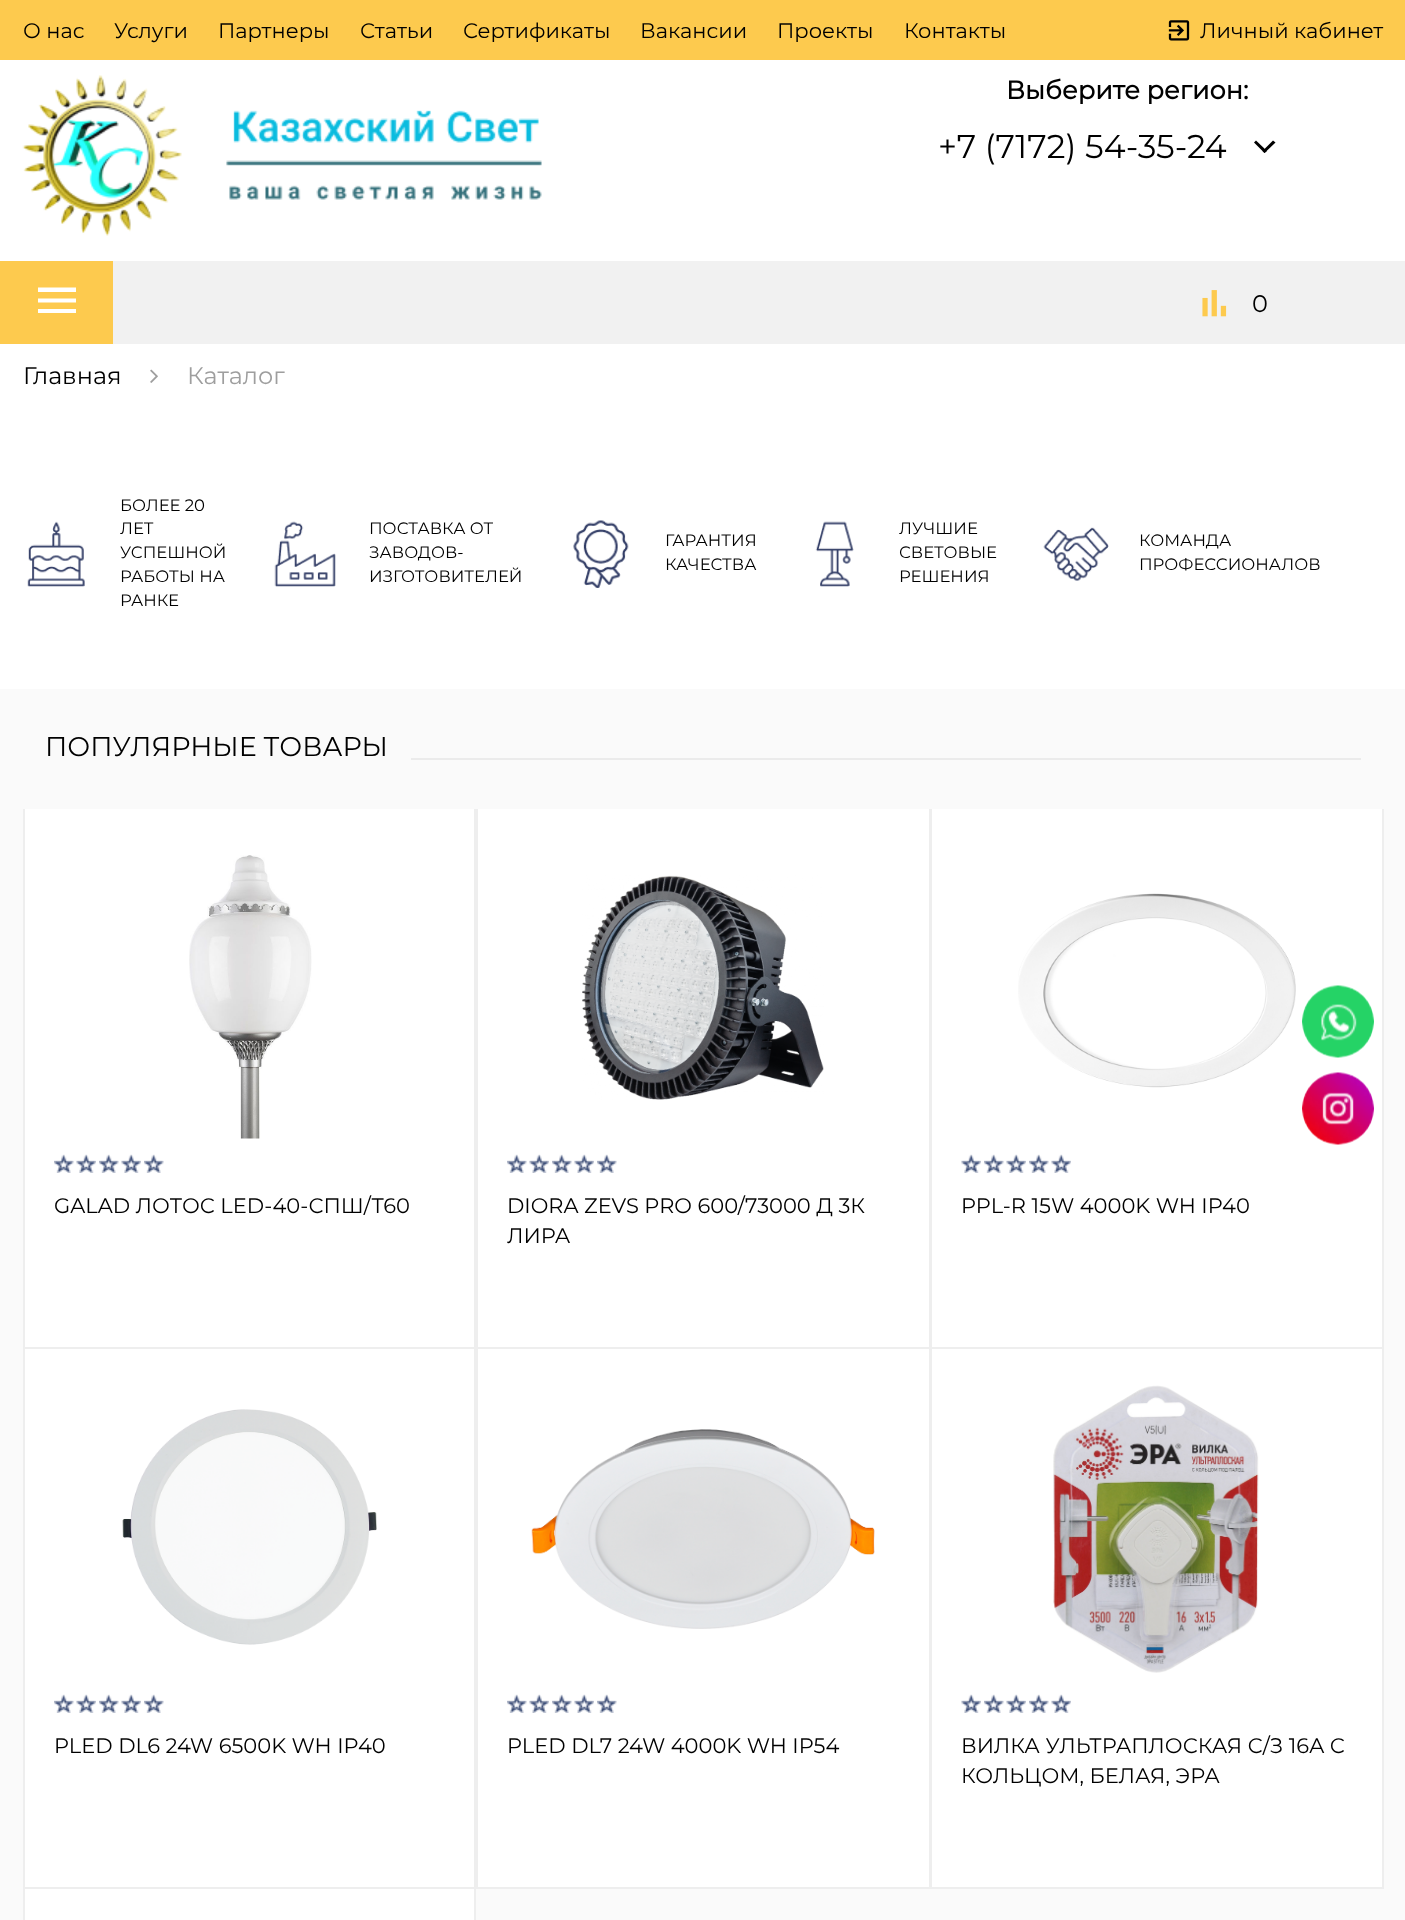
async function draw(canvas) {
  canvas.width = 1405
  canvas.height = 1920
  const ctx = canvas.getContext('2d')
  ctx.miterLimit = 4
  ctx.fontKerning = 'normal'
  async function loadImage(src) {
    const img = new Image()
    img.src = src
    await img.decode()
    return img
  }

  ctx.fillStyle = '#fff'
  ctx.fillRect(0, 0, 1405, 1920)
  ctx.fillStyle = '#fdca4e'
  ctx.fillRect(0, 0, 1405, 60)
  ctx.font = '21px Montserrat'
  ctx.fillStyle = '#000'
  ctx.fillText('О нас', 23, 38)
  ctx.fillText('Услуги', 114, 38)
  ctx.fillText('Партнеры', 218, 38)
  ctx.fillText('Статьи', 360, 38)
  ctx.fillText('Сертификаты', 463, 38)
  ctx.fillText('Вакансии', 640, 38)
  ctx.fillText('Проекты', 777, 38)
  ctx.fillText('Контакты', 904, 38)
  ctx.drawImage(await loadImage('image0.png'), 1168, 20, 22, 21)
  ctx.fillText('Личный кабинет', 1200, 38)
  ctx.drawImage(await loadImage('image1.png'), 22, 75, 520, 161)
  ctx.font = 'bold 25.5px Montserrat'
  ctx.fillText('Выберите регион:', 1006, 99)
  ctx.font = '33px Montserrat'
  ctx.fillText('+7 (7172) 54-35-24', 938, 158)
  ctx.beginPath()
  ctx.moveTo(1273, 140.5)
  ctx.lineTo(1275.5, 142.5)
  ctx.lineTo(1264.5, 153)
  ctx.lineTo(1262.5, 151)
  ctx.closePath()
  ctx.fill()
  ctx.beginPath()
  ctx.moveTo(1256, 140.5)
  ctx.lineTo(1267, 151)
  ctx.lineTo(1264.5, 153)
  ctx.lineTo(1254, 142.5)
  ctx.closePath()
  ctx.fill()
  ctx.fillStyle = '#f1f1f1'
  ctx.fillRect(113, 261, 1292, 83)
  ctx.fillStyle = '#fdca4e'
  ctx.fillRect(0, 261, 113, 83)
  ctx.fillStyle = '#fff'
  ctx.beginPath()
  ctx.moveTo(38, 287.5)
  ctx.lineTo(76, 287.5)
  ctx.lineTo(76, 292)
  ctx.lineTo(38, 292)
  ctx.closePath()
  ctx.moveTo(38, 298.5)
  ctx.lineTo(76, 298.5)
  ctx.lineTo(76, 302.5)
  ctx.lineTo(38, 302.5)
  ctx.closePath()
  ctx.moveTo(38, 309)
  ctx.lineTo(76, 309)
  ctx.lineTo(76, 313)
  ctx.lineTo(38, 313)
  ctx.closePath()
  ctx.fill()
  ctx.drawImage(await loadImage('image2.png'), 1202, 290, 25, 27)
  ctx.font = '24px Montserrat'
  ctx.fillStyle = '#000'
  ctx.fillText('0', 1252, 312)
  ctx.fillText('Главная', 23, 384)
  ctx.drawImage(await loadImage('image3.png'), 150, 369, 8, 14)
  ctx.fillStyle = '#9e9e9e'
  ctx.fillText('Каталог', 187, 384)
  ctx.drawImage(await loadImage('image4.png'), 27, 521, 58, 66)
  ctx.font = '16.5px Montserrat'
  ctx.fillStyle = '#000'
  ctx.fillText('БОЛЕЕ 20', 120, 511)
  ctx.fillText('ЛЕТ', 120, 534)
  ctx.fillText('УСПЕШНОЙ', 120, 558)
  ctx.fillText('РАБОТЫ НА', 120, 582)
  ctx.fillText('РАНКЕ', 120, 606)
  ctx.drawImage(await loadImage('image5.png'), 274, 521, 62, 66)
  ctx.fillText('ПОСТАВКА ОТ', 369, 534)
  ctx.fillText('ЗАВОДОВ-', 369, 558)
  ctx.fillText('ИЗГОТОВИТЕЛЕЙ', 369, 582)
  ctx.drawImage(await loadImage('image6.png'), 573, 520, 56, 68)
  ctx.fillText('ГАРАНТИЯ', 665, 546)
  ctx.fillText('КАЧЕСТВА', 665, 570)
  ctx.drawImage(await loadImage('image7.png'), 815, 521, 39, 66)
  ctx.fillText('ЛУЧШИЕ', 899, 534)
  ctx.fillText('СВЕТОВЫЕ', 899, 558)
  ctx.fillText('РЕШЕНИЯ', 899, 582)
  ctx.drawImage(await loadImage('image8.png'), 1043, 527, 66, 54)
  ctx.fillText('КОМАНДА', 1139, 546)
  ctx.fillText('ПРОФЕССИОНАЛОВ', 1139, 570)
  ctx.fillStyle = '#fafafa'
  ctx.fillRect(0, 689, 1405, 1231)
  ctx.font = '27px Montserrat'
  ctx.fillStyle = '#000'
  ctx.fillText('ПОПУЛЯРНЫЕ ТОВАРЫ', 45, 756)
  ctx.fillStyle = '#ebebeb'
  ctx.fillRect(411, 758, 950, 2)
  ctx.fillStyle = '#fff'
  ctx.fillRect(25, 809, 449, 538)
  ctx.fillStyle = '#eee'
  ctx.fillRect(474, 809, 2, 1111)
  ctx.fillRect(23, 1347, 453, 2)
  ctx.fillRect(23, 809, 2, 540)
  ctx.drawImage(await loadImage('image9.png'), 189, 855, 123, 284)
  ctx.drawImage(await loadImage('image10.png'), 54, 1154, 20, 19)
  ctx.drawImage(await loadImage('image11.png'), 76, 1154, 20, 19)
  ctx.drawImage(await loadImage('image10.png'), 99, 1154, 20, 19)
  ctx.drawImage(await loadImage('image11.png'), 121, 1154, 20, 19)
  ctx.drawImage(await loadImage('image10.png'), 144, 1154, 20, 19)
  ctx.font = '21px Montserrat'
  ctx.fillStyle = '#000'
  ctx.fillText('GALAD ЛОТОС LED-40-СПШ/Т60', 54, 1213)
  ctx.fillStyle = '#fff'
  ctx.fillRect(478, 809, 451, 538)
  ctx.fillStyle = '#eee'
  ctx.fillRect(929, 809, 1, 1080)
  ctx.fillRect(476, 1347, 454, 2)
  ctx.fillRect(476, 809, 2, 540)
  ctx.drawImage(await loadImage('image12.png'), 582, 875, 242, 225)
  ctx.drawImage(await loadImage('image13.png'), 507, 1154, 20, 19)
  ctx.drawImage(await loadImage('image14.png'), 529, 1154, 20, 19)
  ctx.drawImage(await loadImage('image10.png'), 552, 1154, 20, 19)
  ctx.drawImage(await loadImage('image14.png'), 574, 1154, 20, 19)
  ctx.drawImage(await loadImage('image15.png'), 597, 1154, 20, 19)
  ctx.fillStyle = '#000'
  ctx.fillText('DIORA ZEVS PRO 600/73000 Д 3К', 507, 1213)
  ctx.fillText('ЛИРА', 507, 1243)
  ctx.fillStyle = '#fff'
  ctx.fillRect(932, 809, 450, 538)
  ctx.fillStyle = '#eee'
  ctx.fillRect(1382, 809, 2, 1080)
  ctx.fillRect(930, 1347, 453, 2)
  ctx.fillRect(930, 809, 2, 540)
  ctx.drawImage(await loadImage('image16.png'), 1018, 893, 278, 195)
  ctx.drawImage(await loadImage('image11.png'), 961, 1154, 20, 19)
  ctx.drawImage(await loadImage('image10.png'), 984, 1154, 20, 19)
  ctx.drawImage(await loadImage('image11.png'), 1006, 1154, 20, 19)
  ctx.drawImage(await loadImage('image17.png'), 1029, 1154, 20, 19)
  ctx.drawImage(await loadImage('image14.png'), 1051, 1154, 20, 19)
  ctx.fillStyle = '#000'
  ctx.fillText('PPL-R 15W 4000K WH IP40', 961, 1213)
  ctx.fillStyle = '#fff'
  ctx.fillRect(25, 1349, 449, 538)
  ctx.fillStyle = '#eee'
  ctx.fillRect(23, 1887, 1360, 2)
  ctx.fillRect(23, 1349, 2, 571)
  ctx.drawImage(await loadImage('image18.png'), 122, 1409, 255, 236)
  ctx.drawImage(await loadImage('image10.png'), 54, 1694, 20, 19)
  ctx.drawImage(await loadImage('image11.png'), 76, 1694, 20, 19)
  ctx.drawImage(await loadImage('image10.png'), 99, 1694, 20, 19)
  ctx.drawImage(await loadImage('image11.png'), 121, 1694, 20, 19)
  ctx.drawImage(await loadImage('image10.png'), 144, 1694, 20, 19)
  ctx.fillStyle = '#000'
  ctx.fillText('PLED DL6 24W 6500K WH IP40', 54, 1753)
  ctx.fillStyle = '#fff'
  ctx.fillRect(478, 1349, 451, 538)
  ctx.fillStyle = '#eee'
  ctx.fillRect(476, 1349, 2, 540)
  ctx.drawImage(await loadImage('image19.png'), 531, 1429, 344, 200)
  ctx.drawImage(await loadImage('image13.png'), 507, 1694, 20, 19)
  ctx.drawImage(await loadImage('image14.png'), 529, 1694, 20, 19)
  ctx.drawImage(await loadImage('image10.png'), 552, 1694, 20, 19)
  ctx.drawImage(await loadImage('image14.png'), 574, 1694, 20, 19)
  ctx.drawImage(await loadImage('image15.png'), 597, 1694, 20, 19)
  ctx.fillStyle = '#000'
  ctx.fillText('PLED DL7 24W 4000K WH IP54', 507, 1753)
  ctx.fillStyle = '#fff'
  ctx.fillRect(932, 1349, 450, 538)
  ctx.fillStyle = '#eee'
  ctx.fillRect(930, 1349, 2, 540)
  ctx.drawImage(await loadImage('image20.png'), 1053, 1385, 206, 288)
  ctx.drawImage(await loadImage('image11.png'), 961, 1694, 20, 19)
  ctx.drawImage(await loadImage('image10.png'), 984, 1694, 20, 19)
  ctx.drawImage(await loadImage('image11.png'), 1006, 1694, 20, 19)
  ctx.drawImage(await loadImage('image17.png'), 1029, 1694, 20, 19)
  ctx.drawImage(await loadImage('image14.png'), 1051, 1694, 20, 19)
  ctx.fillStyle = '#000'
  ctx.fillText('ВИЛКА УЛЬТРАПЛОСКАЯ C/З 16A С', 961, 1753)
  ctx.fillText('КОЛЬЦОМ, БЕЛАЯ, ЭРА', 961, 1783)
  ctx.fillStyle = '#fff'
  ctx.fillRect(25, 1889, 449, 31)
  ctx.drawImage(await loadImage('image21.png'), 1302, 985, 72, 73)
  ctx.drawImage(await loadImage('image22.png'), 1302, 1072, 72, 73)
}

draw(document.querySelector('canvas'))
